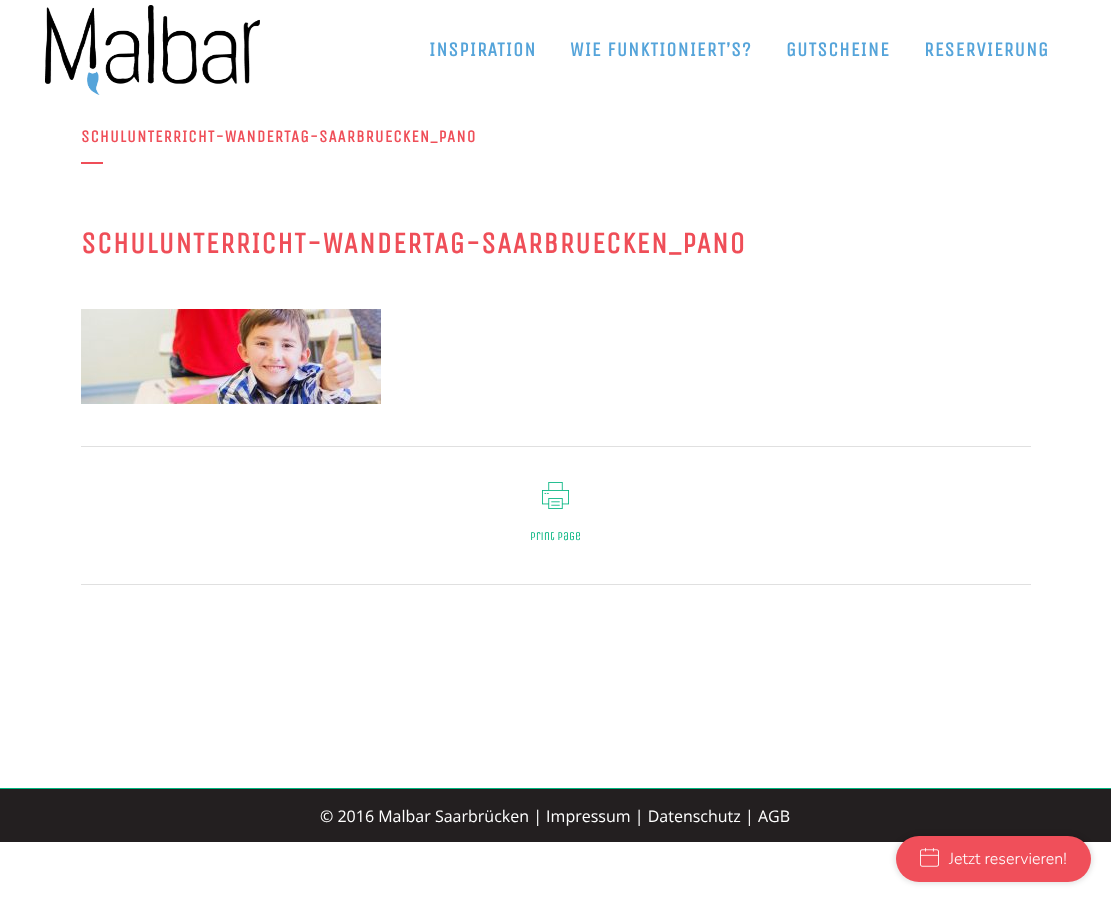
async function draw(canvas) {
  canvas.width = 1111
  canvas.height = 902
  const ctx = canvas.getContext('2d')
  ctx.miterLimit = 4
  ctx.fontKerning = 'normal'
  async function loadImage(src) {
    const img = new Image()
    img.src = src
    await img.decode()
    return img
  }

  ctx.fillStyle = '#fff'
  ctx.fillRect(0, 0, 1111, 902)
  ctx.drawImage(await loadImage('image0.png'), 45, 5, 215, 90)
  ctx.letterSpacing = '1px'
  ctx.font = 'bold 20px Unica One'
  ctx.fillStyle = '#55a4da'
  ctx.fillText('INSPIRATION', 429, 56)
  ctx.fillText('WIE FUNKTIONIERT’S?', 570, 56)
  ctx.fillText('GUTSCHEINE', 786, 56)
  ctx.fillText('RESERVIERUNG', 924, 56)
  ctx.font = 'bold 17px Unica One'
  ctx.fillStyle = '#ef4e58'
  ctx.fillText('SCHULUNTERRICHT-WANDERTAG-SAARBRUECKEN_PANO', 81, 142)
  ctx.fillRect(81, 162, 22, 2)
  ctx.font = 'bold 30px Unica One'
  ctx.fillText('SCHULUNTERRICHT-WANDERTAG-SAARBRUECKEN_PANO', 81, 253)
  ctx.drawImage(await loadImage('image1.png'), 81, 309, 300, 95)
  ctx.fillStyle = '#e0e0e0'
  ctx.fillRect(81, 446, 950, 1)
  ctx.fillRect(81, 584, 950, 1)
  ctx.drawImage(await loadImage('image2.png'), 542, 482, 27, 27)
  ctx.letterSpacing = '0px'
  ctx.font = '12px Unica One'
  ctx.fillStyle = '#00b47e'
  ctx.fillText('Print page', 530, 540)
  ctx.fillStyle = '#231f20'
  ctx.fillRect(0, 789, 1111, 53)
  ctx.fillStyle = '#00b47e'
  ctx.fillRect(0, 788, 1111, 1)
  ctx.font = '16px Open Sans'
  ctx.fillStyle = '#fff'
  ctx.fillText('© 2016 Malbar Saarbrücken | Impressum | Datenschutz | AGB', 320, 822)
  ctx.fillStyle = '#0000001a'
  ctx.filter = 'blur(2.5px)'
  ctx.beginPath()
  ctx.roundRect(894, 834, 199, 50, 25)
  ctx.fill()
  ctx.filter = 'none'
  ctx.fillStyle = '#f04f5a'
  ctx.beginPath()
  ctx.roundRect(896, 836, 195, 46, 23)
  ctx.fill()
  ctx.drawImage(await loadImage('image3.png'), 920, 848, 19, 19)
  ctx.font = '300 16px Nunito'
  ctx.fillStyle = '#fff'
  ctx.fillText('Jetzt reservieren!', 949, 864)
}

draw(document.querySelector('canvas'))
